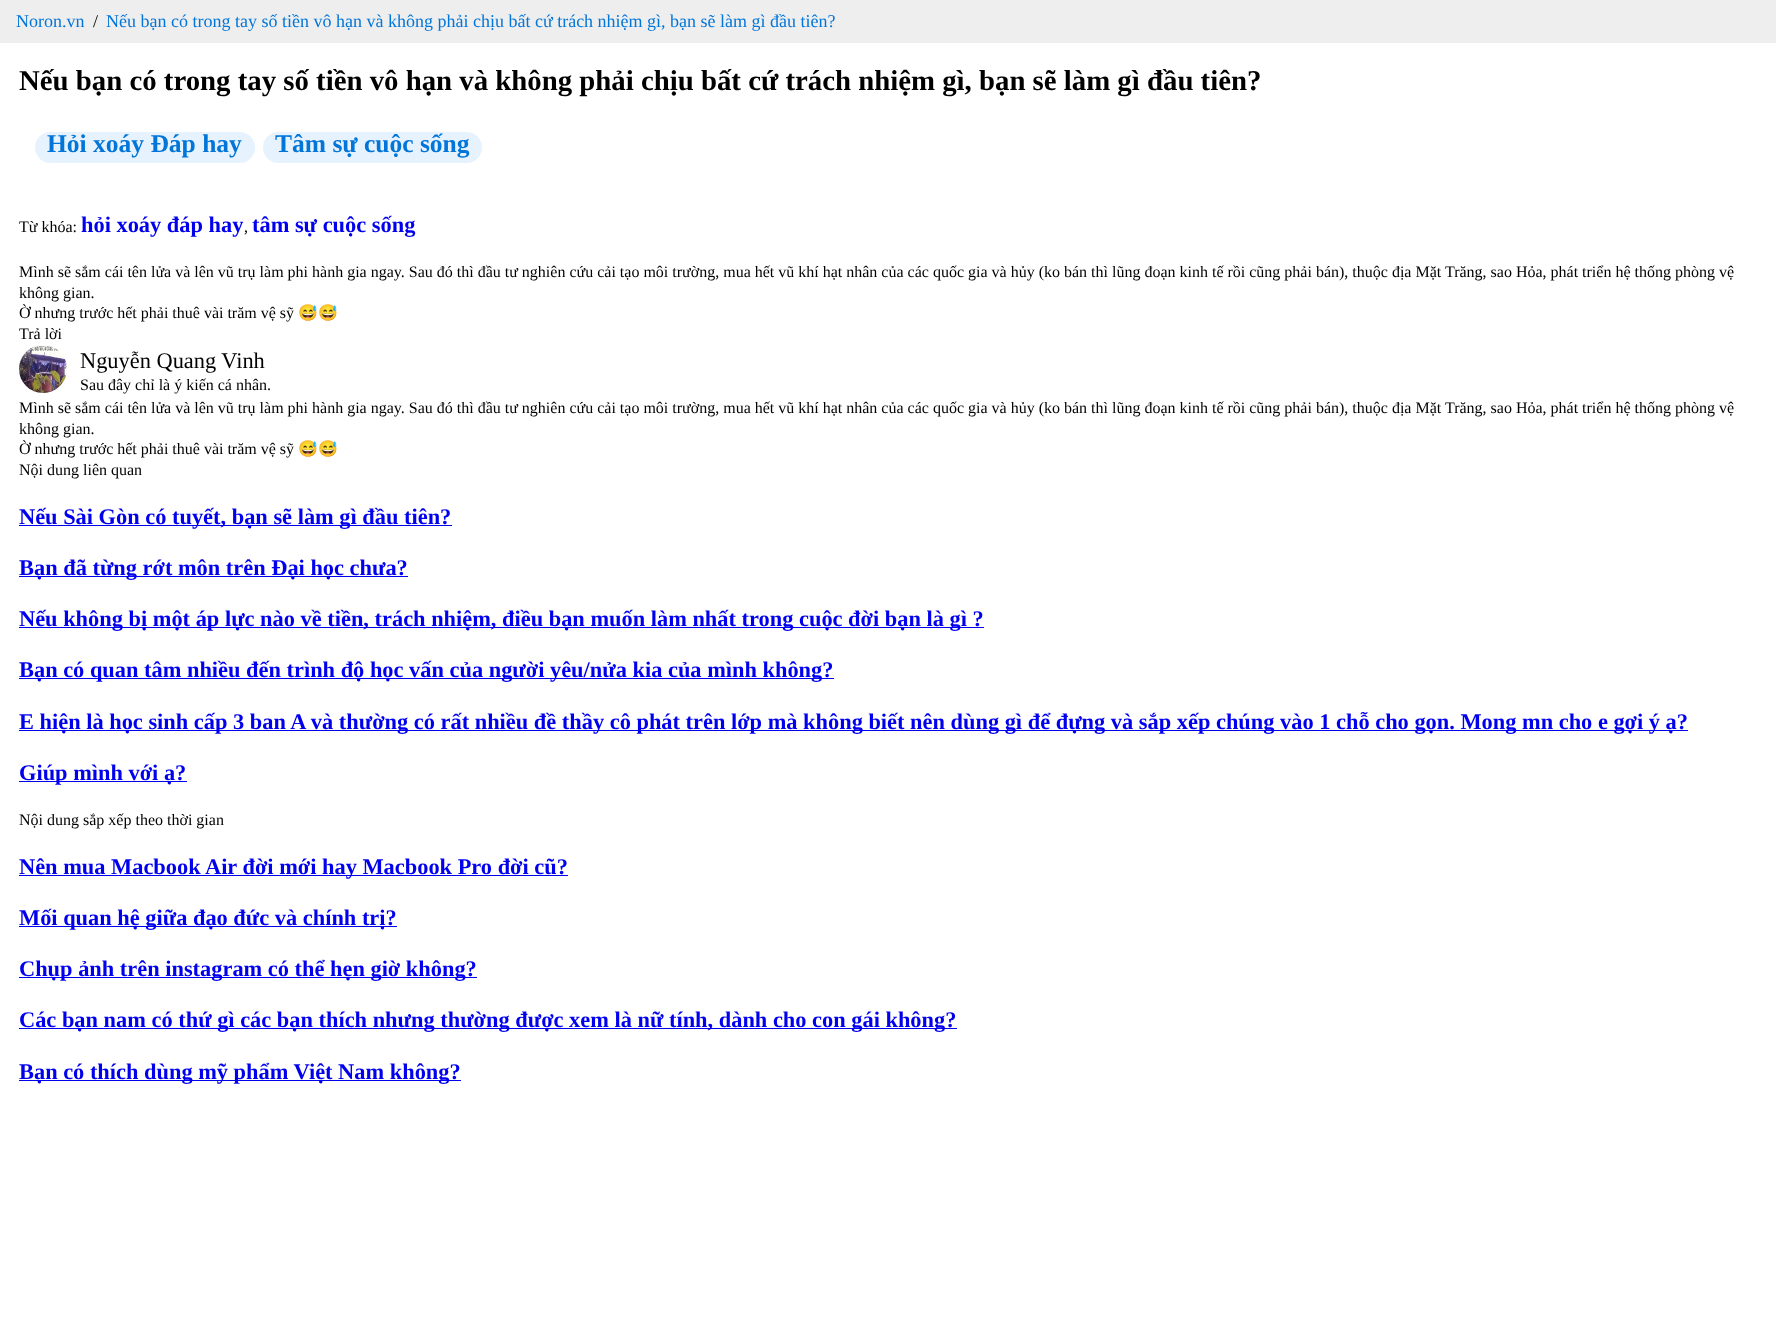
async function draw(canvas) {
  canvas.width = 1776
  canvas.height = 1326
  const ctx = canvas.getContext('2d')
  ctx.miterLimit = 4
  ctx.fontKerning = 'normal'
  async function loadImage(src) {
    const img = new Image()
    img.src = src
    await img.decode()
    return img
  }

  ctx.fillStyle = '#fff'
  ctx.fillRect(0, 0, 1776, 1326)
  ctx.fillStyle = '#eee'
  ctx.fillRect(0, 0, 1776, 43)
  ctx.font = '18px Liberation Serif'
  ctx.fillStyle = '#0275d8'
  ctx.fillText('Noron.vn', 16, 27)
  ctx.fillStyle = '#000'
  ctx.fillText('/', 93, 27)
  ctx.fillStyle = '#0275d8'
  ctx.fillText('Nếu bạn có trong tay số tiền vô hạn và không phải chịu bất cứ trách nhiệm gì, bạn sẽ làm gì đầu tiên?', 106, 27)
  ctx.font = 'bold 28.8px Liberation Serif'
  ctx.fillStyle = '#000'
  ctx.fillText('Nếu bạn có trong tay số tiền vô hạn và không phải chịu bất cứ trách nhiệm gì, bạn sẽ làm gì đầu tiên?', 19, 90)
  ctx.fillStyle = '#e6f3ff'
  ctx.beginPath()
  ctx.roundRect(35, 132, 220, 31, 15.5)
  ctx.fill()
  ctx.font = 'bold 25.5px Liberation Serif'
  ctx.fillStyle = '#0275d8'
  ctx.fillText('Hỏi xoáy Đáp hay', 47, 152)
  ctx.fillStyle = '#e6f3ff'
  ctx.beginPath()
  ctx.roundRect(263, 132, 219, 31, 15.5)
  ctx.fill()
  ctx.fillStyle = '#0275d8'
  ctx.fillText('Tâm sự cuộc sống', 275, 152)
  ctx.font = '16px Liberation Serif'
  ctx.fillStyle = '#000'
  ctx.fillText('Từ khóa:', 19, 232)
  ctx.font = 'bold 22.4px Liberation Serif'
  ctx.fillStyle = '#00e'
  ctx.fillText('hỏi xoáy đáp hay', 81, 232)
  ctx.font = '16px Liberation Serif'
  ctx.fillStyle = '#000'
  ctx.fillText(',', 244, 232)
  ctx.font = 'bold 22.4px Liberation Serif'
  ctx.fillStyle = '#00e'
  ctx.fillText('tâm sự cuộc sống', 252, 232)
  ctx.font = '16px Liberation Serif'
  ctx.fillStyle = '#000'
  ctx.fillText('Mình sẽ sắm cái tên lửa và lên vũ trụ làm phi hành gia ngay. Sau đó thì đầu tư nghiên cứu cải tạo môi trường, mua hết vũ khí hạt nhân của các quốc gia và hủy (ko bán thì lũng đoạn kinh tế rồi cũng phải bán), thuộc địa Mặt Trăng, sao Hỏa, phát triển hệ thống phòng vệ', 19, 277)
  ctx.fillText('không gian.', 19, 298)
  ctx.fillText('Ờ nhưng trước hết phải thuê vài trăm vệ sỹ', 19, 318)
  ctx.font = '16px Noto Color Emoji'
  ctx.fillText('😅😅', 298, 318)
  ctx.font = '16px Liberation Serif'
  ctx.fillText('Trả lời', 19, 339)
  ctx.drawImage(await loadImage('image0.png'), 19, 345, 48, 48)
  ctx.font = '22.4px Liberation Serif'
  ctx.fillText('Nguyễn Quang Vinh', 80, 368)
  ctx.font = '16px Liberation Serif'
  ctx.fillText('Sau đây chỉ là ý kiến cá nhân.', 80, 390)
  ctx.fillText('Mình sẽ sắm cái tên lửa và lên vũ trụ làm phi hành gia ngay. Sau đó thì đầu tư nghiên cứu cải tạo môi trường, mua hết vũ khí hạt nhân của các quốc gia và hủy (ko bán thì lũng đoạn kinh tế rồi cũng phải bán), thuộc địa Mặt Trăng, sao Hỏa, phát triển hệ thống phòng vệ', 19, 413)
  ctx.fillText('không gian.', 19, 434)
  ctx.fillText('Ờ nhưng trước hết phải thuê vài trăm vệ sỹ', 19, 454)
  ctx.font = '16px Noto Color Emoji'
  ctx.fillText('😅😅', 298, 454)
  ctx.font = '16px Liberation Serif'
  ctx.fillText('Nội dung liên quan', 19, 475)
  ctx.fillStyle = '#00e'
  ctx.fillRect(19, 525, 433, 1)
  ctx.font = 'bold 22.4px Liberation Serif'
  ctx.fillText('Nếu Sài Gòn có tuyết, bạn sẽ làm gì đầu tiên?', 19, 524)
  ctx.fillRect(19, 576, 389, 1)
  ctx.fillText('Bạn đã từng rớt môn trên Đại học chưa?', 19, 575)
  ctx.fillRect(19, 627, 965, 1)
  ctx.fillText('Nếu không bị một áp lực nào về tiền, trách nhiệm, điều bạn muốn làm nhất trong cuộc đời bạn là gì ?', 19, 626)
  ctx.fillRect(19, 678, 815, 1)
  ctx.fillText('Bạn có quan tâm nhiều đến trình độ học vấn của người yêu/nửa kia của mình không?', 19, 677)
  ctx.fillRect(19, 730, 1669, 1)
  ctx.fillText('E hiện là học sinh cấp 3 ban A và thường có rất nhiều đề thầy cô phát trên lớp mà không biết nên dùng gì để đựng và sắp xếp chúng vào 1 chỗ cho gọn. Mong mn cho e gợi ý ạ?', 19, 729)
  ctx.fillRect(19, 781, 168, 1)
  ctx.fillText('Giúp mình với ạ?', 19, 780)
  ctx.font = '16px Liberation Serif'
  ctx.fillStyle = '#000'
  ctx.fillText('Nội dung sắp xếp theo thời gian', 19, 825)
  ctx.fillStyle = '#00e'
  ctx.fillRect(19, 875, 549, 1)
  ctx.font = 'bold 22.4px Liberation Serif'
  ctx.fillText('Nên mua Macbook Air đời mới hay Macbook Pro đời cũ?', 19, 874)
  ctx.fillRect(19, 926, 378, 1)
  ctx.fillText('Mối quan hệ giữa đạo đức và chính trị?', 19, 925)
  ctx.fillRect(19, 977, 458, 1)
  ctx.fillText('Chụp ảnh trên instagram có thể hẹn giờ không?', 19, 976)
  ctx.fillRect(19, 1028, 938, 1)
  ctx.fillText('Các bạn nam có thứ gì các bạn thích nhưng thường được xem là nữ tính, dành cho con gái không?', 19, 1027)
  ctx.fillRect(19, 1080, 442, 1)
  ctx.fillText('Bạn có thích dùng mỹ phẩm Việt Nam không?', 19, 1079)
}

draw(document.querySelector('canvas'))
